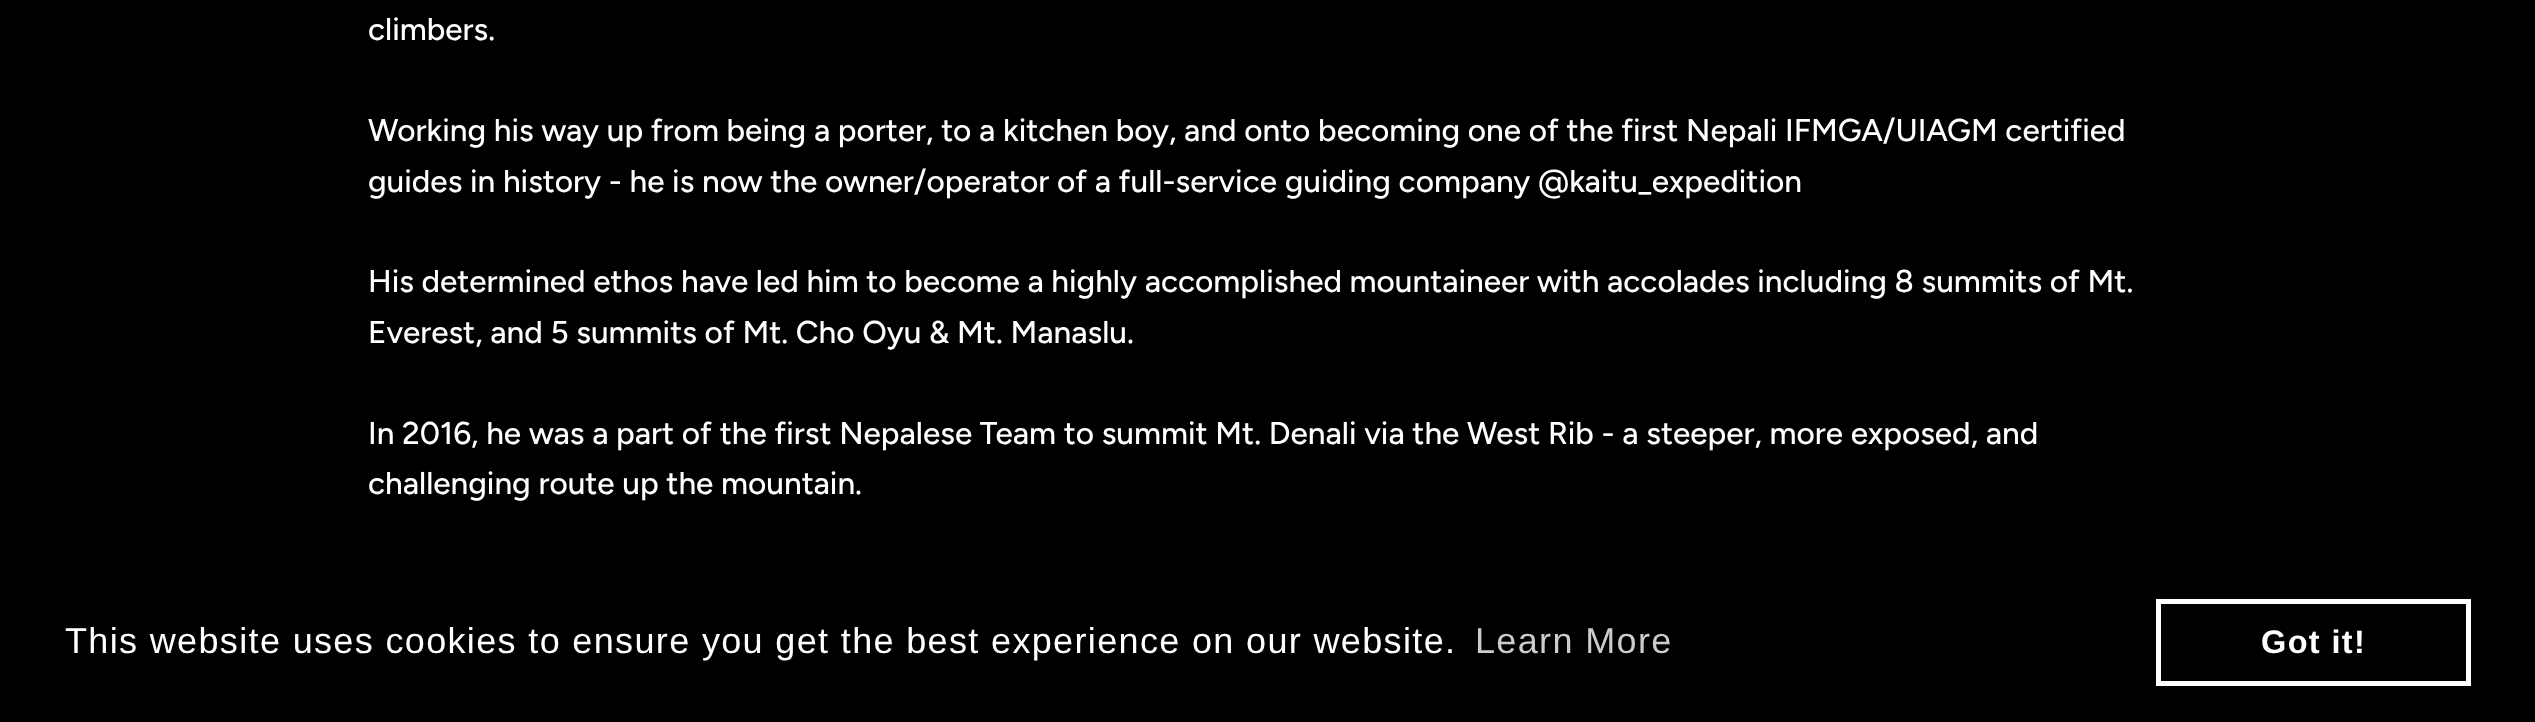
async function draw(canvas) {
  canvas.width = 2535
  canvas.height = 722
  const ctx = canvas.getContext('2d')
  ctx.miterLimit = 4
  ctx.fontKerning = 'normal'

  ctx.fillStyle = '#000'
  ctx.fillRect(0, 0, 2535, 722)
  ctx.font = '500 31.5px Figtree'
  ctx.fillStyle = '#fff'
  ctx.fillText('climbers.', 368, 40)
  ctx.fillText('Working his way up from being a porter, to a kitchen boy, and onto becoming one of the first Nepali IFMGA/UIAGM certified', 368, 141)
  ctx.fillText('guides in history - he is now the owner/operator of a full-service guiding company @kaitu_expedition', 368, 192)
  ctx.fillText('His determined ethos have led him to become a highly accomplished mountaineer with accolades including 8 summits of Mt.', 368, 292)
  ctx.fillText('Everest, and 5 summits of Mt. Cho Oyu & Mt. Manaslu.', 368, 343)
  ctx.fillText('In 2016, he was a part of the first Nepalese Team to summit Mt. Denali via the West Rib - a steeper, more exposed, and', 368, 444)
  ctx.fillText('challenging route up the mountain.', 368, 494)
  ctx.letterSpacing = '1.35px'
  ctx.font = '36px Liberation Sans'
  ctx.fillText('This website uses cookies to ensure you get the best experience on our website.', 65, 653)
  ctx.fillStyle = '#ccc'
  ctx.fillText('Learn More', 1475, 653)
  ctx.strokeStyle = '#fff'
  ctx.lineWidth = 5
  ctx.strokeRect(2158.5, 601.5, 310, 82)
  ctx.font = 'bold 32.5px Liberation Sans'
  ctx.fillStyle = '#fff'
  ctx.fillText('Got it!', 2261, 653)
}

draw(document.querySelector('canvas'))
